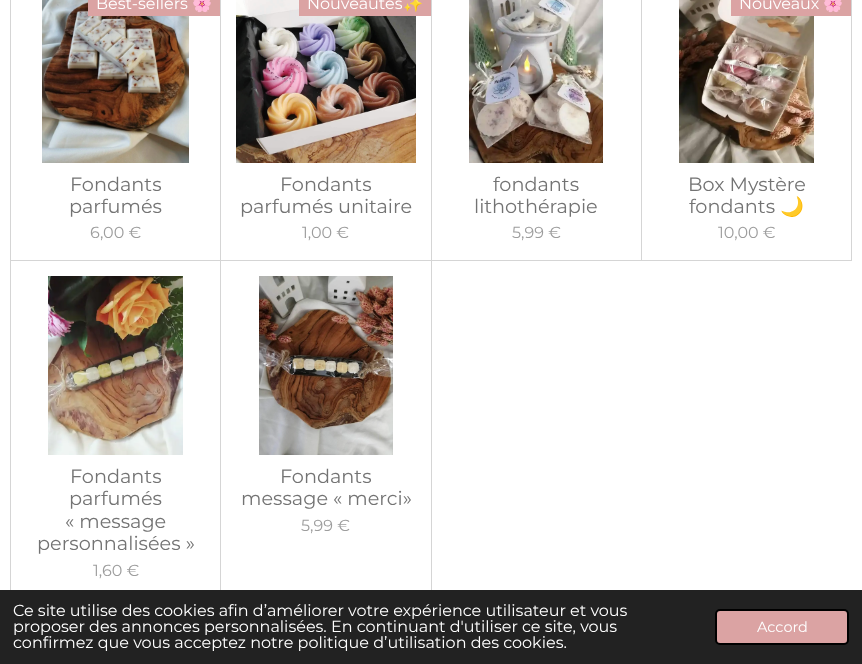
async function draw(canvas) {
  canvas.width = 862
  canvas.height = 664
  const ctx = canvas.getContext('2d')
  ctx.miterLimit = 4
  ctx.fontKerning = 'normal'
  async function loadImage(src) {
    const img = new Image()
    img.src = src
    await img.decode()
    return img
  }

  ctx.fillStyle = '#fff'
  ctx.fillRect(0, 0, 862, 664)
  ctx.strokeStyle = '#d5d5d5'
  ctx.strokeRect(10.5, -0.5, 210, 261)
  ctx.drawImage(await loadImage('image0.png'), 42, 0, 147, 163)
  ctx.fillStyle = '#dba3a3'
  ctx.fillRect(88, 0, 132, 16)
  ctx.font = '16px Montserrat'
  ctx.fillStyle = '#fff'
  ctx.fillText('Best-sellers', 96, 9)
  ctx.font = '16px Noto Color Emoji'
  ctx.fillText('🌸', 192, 9)
  ctx.font = '19.25px Montserrat'
  ctx.fillStyle = '#737373'
  ctx.fillText('Fondants', 70, 191)
  ctx.fillText('parfumés', 69, 213)
  ctx.font = '16px Montserrat'
  ctx.fillStyle = '#9d9d9d'
  ctx.fillText('6,00 €', 90, 238)
  ctx.strokeRect(220.5, -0.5, 211, 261)
  ctx.drawImage(await loadImage('image1.png'), 236, 0, 180, 163)
  ctx.fillStyle = '#dba3a3'
  ctx.fillRect(299, 0, 132, 16)
  ctx.fillStyle = '#fff'
  ctx.fillText('Nouveautés', 307, 9)
  ctx.font = '16px Noto Color Emoji'
  ctx.fillText('✨', 403, 9)
  ctx.font = '19.25px Montserrat'
  ctx.fillStyle = '#737373'
  ctx.fillText('Fondants', 280, 191)
  ctx.fillText('parfumés unitaire', 240, 213)
  ctx.font = '16px Montserrat'
  ctx.fillStyle = '#9d9d9d'
  ctx.fillText('1,00 €', 302, 238)
  ctx.strokeRect(431.5, -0.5, 210, 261)
  ctx.drawImage(await loadImage('image2.png'), 469, 0, 134, 163)
  ctx.font = '19.25px Montserrat'
  ctx.fillStyle = '#737373'
  ctx.fillText('fondants', 493, 191)
  ctx.fillText('lithothérapie', 474, 213)
  ctx.font = '16px Montserrat'
  ctx.fillStyle = '#9d9d9d'
  ctx.fillText('5,99 €', 512, 238)
  ctx.strokeRect(641.5, -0.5, 210, 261)
  ctx.drawImage(await loadImage('image3.png'), 679, 0, 135, 163)
  ctx.fillStyle = '#dba3a3'
  ctx.fillRect(731, 0, 120, 16)
  ctx.fillStyle = '#fff'
  ctx.fillText('Nouveaux', 739, 9)
  ctx.font = '16px Noto Color Emoji'
  ctx.fillText('🌸', 823, 9)
  ctx.font = '19.25px Montserrat'
  ctx.fillStyle = '#737373'
  ctx.fillText('Box Mystère', 688, 191)
  ctx.fillText('fondants', 689, 213)
  ctx.font = '19.25px Noto Color Emoji'
  ctx.fillText('🌙', 780, 213)
  ctx.font = '16px Montserrat'
  ctx.fillStyle = '#9d9d9d'
  ctx.fillText('10,00 €', 718, 238)
  ctx.strokeRect(10.5, 260.5, 210, 337)
  ctx.drawImage(await loadImage('image4.png'), 48, 276, 135, 179)
  ctx.font = '19.25px Montserrat'
  ctx.fillStyle = '#737373'
  ctx.fillText('Fondants', 70, 483)
  ctx.fillText('parfumés', 69, 505)
  ctx.fillText('« message', 65, 528)
  ctx.fillText('personnalisées »', 37, 550)
  ctx.font = '16px Montserrat'
  ctx.fillStyle = '#9d9d9d'
  ctx.fillText('1,60 €', 93, 576)
  ctx.strokeRect(220.5, 260.5, 211, 337)
  ctx.drawImage(await loadImage('image5.png'), 259, 276, 134, 179)
  ctx.font = '19.25px Montserrat'
  ctx.fillStyle = '#737373'
  ctx.fillText('Fondants', 280, 483)
  ctx.fillText('message « merci»', 241, 505)
  ctx.font = '16px Montserrat'
  ctx.fillStyle = '#9d9d9d'
  ctx.fillText('5,99 €', 301, 531)
  ctx.fillStyle = '#222'
  ctx.fillRect(0, 590, 862, 74)
  ctx.fillStyle = '#fff'
  ctx.fillText('Ce site utilise des cookies afin d’améliorer votre expérience utilisateur et vous', 13, 616)
  ctx.fillText('proposer des annonces personnalisées. En continuant d\'utiliser ce site, vous', 13, 632)
  ctx.fillText('confirmez que vous acceptez notre politique d’utilisation des cookies.', 13, 648)
  ctx.fillStyle = '#dba3a3'
  ctx.beginPath()
  ctx.roundRect(716, 610, 132, 34, 4)
  ctx.fill()
  ctx.strokeStyle = '#000'
  ctx.lineWidth = 2
  ctx.stroke()
  ctx.font = '14.5px Montserrat'
  ctx.fillStyle = '#fff'
  ctx.fillText('Accord', 757, 632)
}

draw(document.querySelector('canvas'))
